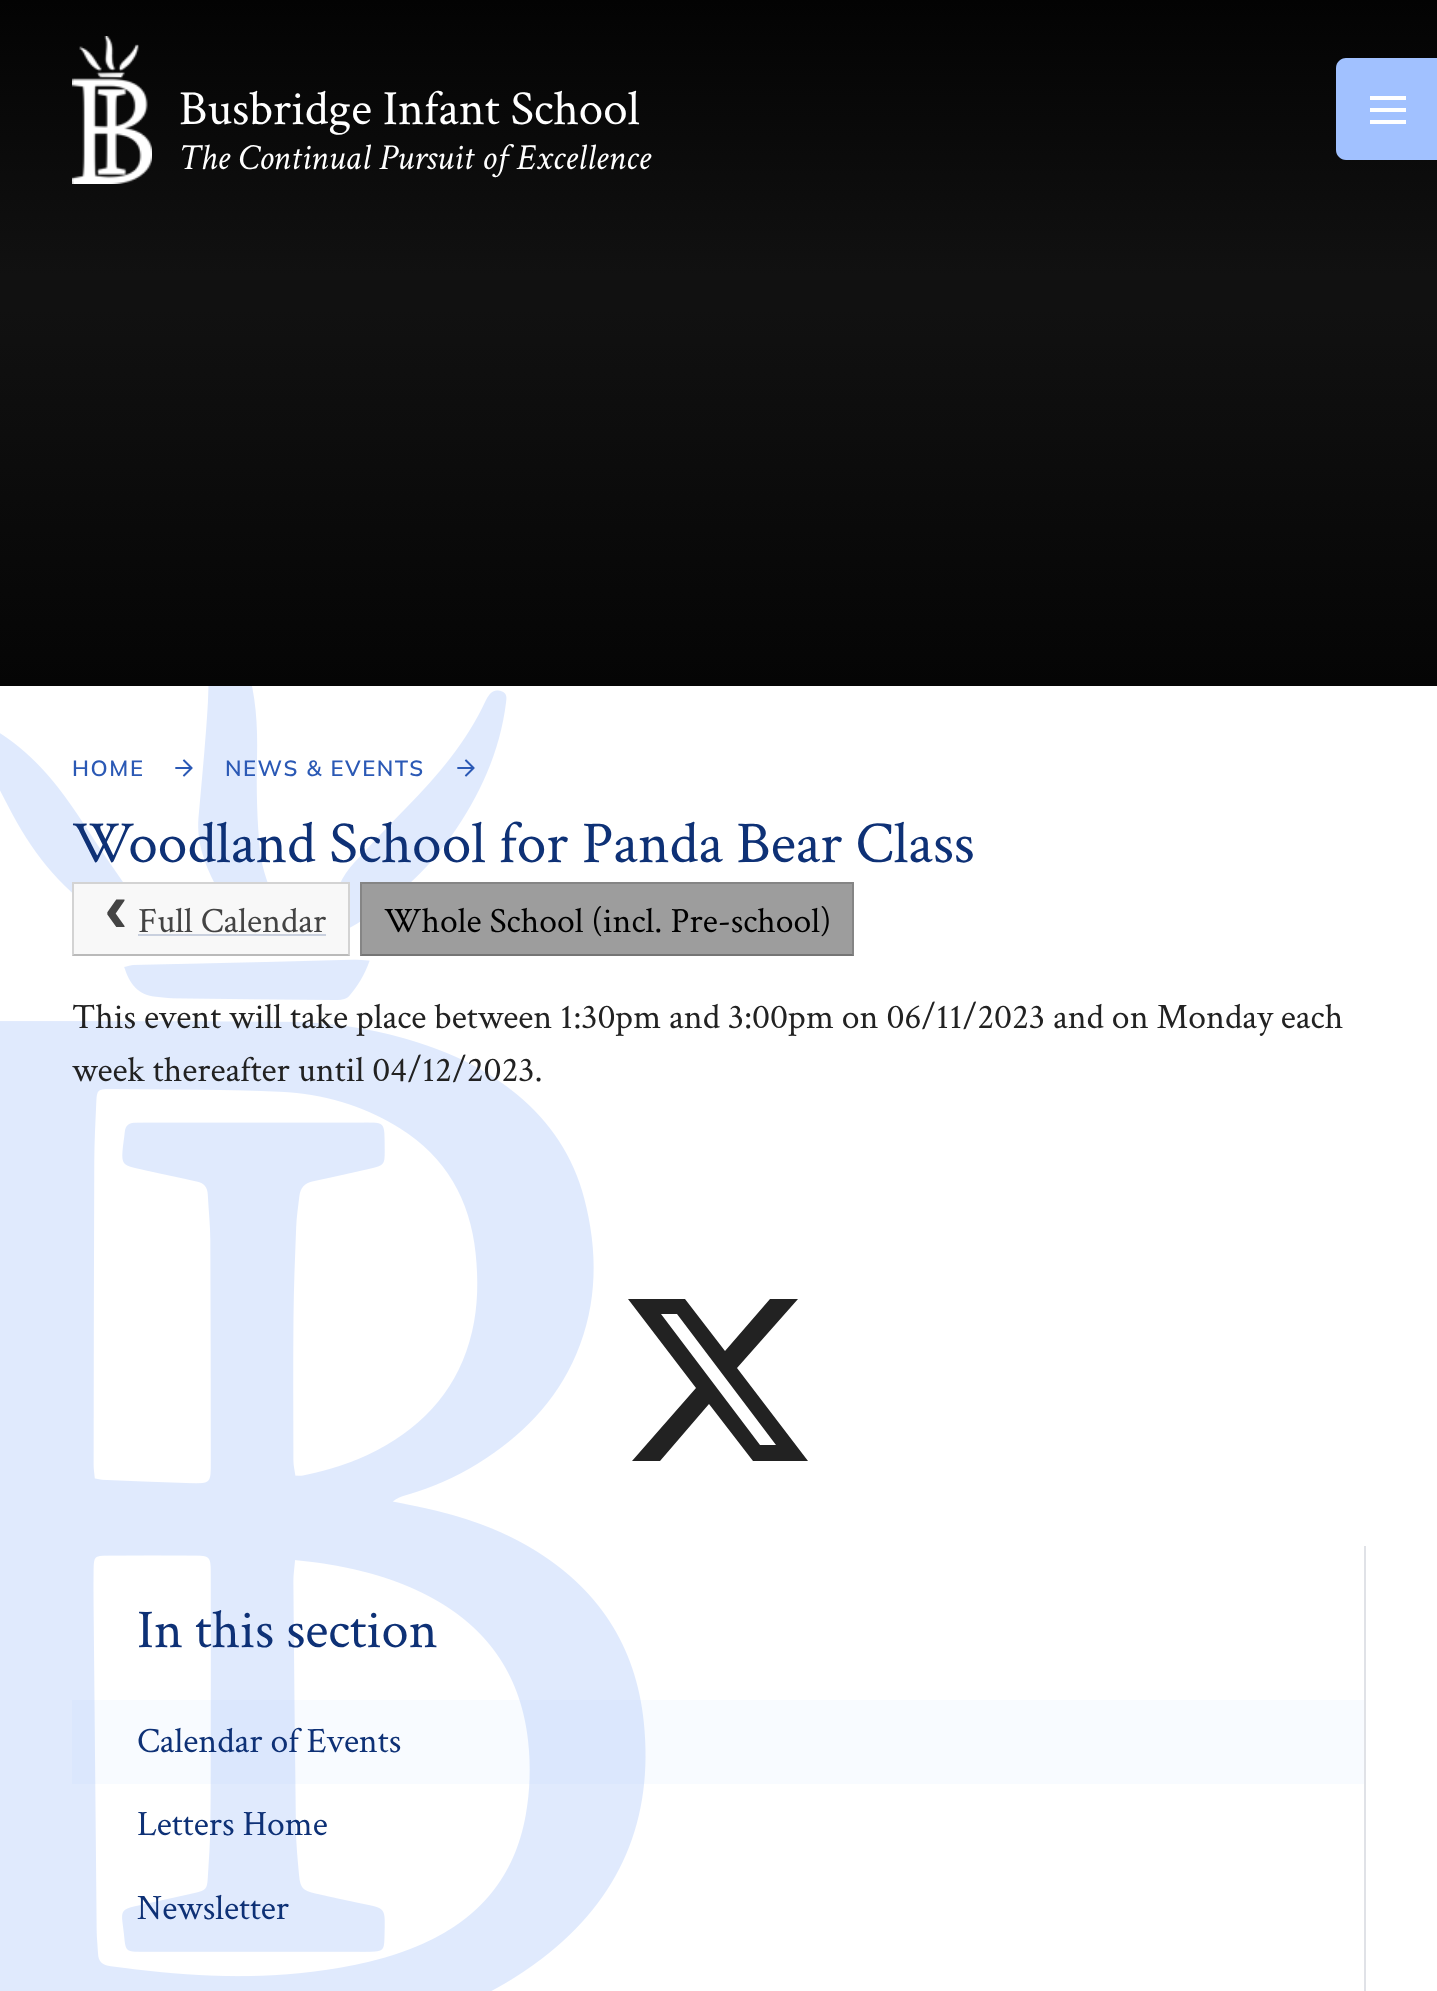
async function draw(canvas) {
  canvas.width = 1437
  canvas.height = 1991
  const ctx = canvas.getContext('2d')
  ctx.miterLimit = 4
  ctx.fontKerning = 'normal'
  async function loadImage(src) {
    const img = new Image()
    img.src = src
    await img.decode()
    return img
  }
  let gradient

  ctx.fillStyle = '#fff'
  ctx.fillRect(0, 0, 1437, 1991)
  gradient = ctx.createLinearGradient(719, 0, 719, 686)
  gradient.addColorStop(0, '#030303')
  gradient.addColorStop(0.4, '#111')
  gradient.addColorStop(0.45, '#111')
  gradient.addColorStop(1, '#050505')
  ctx.fillStyle = gradient
  ctx.fillRect(0, 0, 1437, 686)
  ctx.drawImage(await loadImage('image0.png'), 72, 36, 80, 148)
  ctx.font = '49px Crimson Text'
  ctx.fillStyle = '#fff'
  ctx.fillText('Busbridge Infant School', 179, 124)
  ctx.font = 'italic 36.75px Crimson Text'
  ctx.fillText('The Continual Pursuit of Excellence', 179, 169)
  ctx.fillStyle = '#a1c1ff'
  ctx.beginPath()
  ctx.moveTo(1346, 58)
  ctx.lineTo(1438, 58)
  ctx.lineTo(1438, 160)
  ctx.lineTo(1346, 160)
  ctx.bezierCurveTo(1340.5, 160, 1336, 155.5, 1336, 150)
  ctx.lineTo(1336, 68)
  ctx.bezierCurveTo(1336, 62.5, 1340.5, 58, 1346, 58)
  ctx.closePath()
  ctx.fill()
  ctx.fillStyle = '#fff'
  ctx.fillRect(1370, 96, 36, 4)
  ctx.fillRect(1370, 108, 36, 4)
  ctx.fillRect(1370, 120, 36, 4)
  ctx.drawImage(await loadImage('image1.png'), 0, 686, 646, 1305)
  ctx.letterSpacing = '1.6px'
  ctx.font = '600 22px Mulish'
  ctx.fillStyle = '#2b59b5'
  ctx.fillText('HOME', 72, 776)
  ctx.drawImage(await loadImage('image2.png'), 175, 759, 18, 18)
  ctx.fillText('NEWS & EVENTS', 225, 776)
  ctx.drawImage(await loadImage('image3.png'), 457, 759, 18, 18)
  ctx.letterSpacing = '0px'
  ctx.font = '59.5px Crimson Text'
  ctx.fillStyle = '#0e3176'
  ctx.fillText('Woodland School for Panda Bear Class', 72, 862)
  ctx.fillStyle = '#f8f8f8'
  ctx.fillRect(72, 882, 278, 74)
  ctx.fillStyle = '#d3d3d3'
  ctx.beginPath()
  ctx.moveTo(72, 882)
  ctx.lineTo(350, 882)
  ctx.lineTo(348, 884)
  ctx.lineTo(74, 884)
  ctx.closePath()
  ctx.fill()
  ctx.fillStyle = '#00000026'
  ctx.beginPath()
  ctx.moveTo(350, 882)
  ctx.lineTo(350, 956)
  ctx.lineTo(348, 954)
  ctx.lineTo(348, 884)
  ctx.closePath()
  ctx.fill()
  ctx.fillStyle = '#00000040'
  ctx.beginPath()
  ctx.moveTo(350, 956)
  ctx.lineTo(72, 956)
  ctx.lineTo(74, 954)
  ctx.lineTo(348, 954)
  ctx.closePath()
  ctx.fill()
  ctx.fillStyle = '#00000026'
  ctx.beginPath()
  ctx.moveTo(72, 956)
  ctx.lineTo(72, 882)
  ctx.lineTo(74, 884)
  ctx.lineTo(74, 954)
  ctx.closePath()
  ctx.fill()
  ctx.font = 'bold 71px Liberation Mono'
  ctx.fillStyle = '#444'
  ctx.fillText('‹', 95, 932)
  ctx.font = '35.7px Crimson Text'
  ctx.fillText('Full Calendar', 138, 932)
  ctx.fillStyle = '#c9d0de'
  ctx.fillRect(138, 934, 188, 2)
  ctx.fillStyle = '#9d9d9d'
  ctx.fillRect(360, 882, 494, 74)
  ctx.fillStyle = '#858585'
  ctx.beginPath()
  ctx.moveTo(360, 882)
  ctx.lineTo(854, 882)
  ctx.lineTo(852, 884)
  ctx.lineTo(362, 884)
  ctx.closePath()
  ctx.fill()
  ctx.fillStyle = '#00000026'
  ctx.beginPath()
  ctx.moveTo(854, 882)
  ctx.lineTo(854, 956)
  ctx.lineTo(852, 954)
  ctx.lineTo(852, 884)
  ctx.closePath()
  ctx.fill()
  ctx.fillStyle = '#00000040'
  ctx.beginPath()
  ctx.moveTo(854, 956)
  ctx.lineTo(360, 956)
  ctx.lineTo(362, 954)
  ctx.lineTo(852, 954)
  ctx.closePath()
  ctx.fill()
  ctx.fillStyle = '#00000026'
  ctx.beginPath()
  ctx.moveTo(360, 956)
  ctx.lineTo(360, 882)
  ctx.lineTo(362, 884)
  ctx.lineTo(362, 954)
  ctx.closePath()
  ctx.fill()
  ctx.fillStyle = '#000'
  ctx.fillText('Whole School (incl. Pre-school)', 384, 932)
  ctx.fillStyle = '#222'
  ctx.fillText('This event will take place between 1:30pm and 3:00pm on 06/11/2023 and on Monday each', 72, 1028)
  ctx.fillText('week thereafter until 04/12/2023.', 72, 1081)
  ctx.beginPath()
  ctx.moveTo(770, 1299)
  ctx.lineTo(798, 1299)
  ctx.lineTo(737, 1368)
  ctx.lineTo(808, 1461)
  ctx.lineTo(753, 1461)
  ctx.lineTo(709, 1404)
  ctx.lineTo(660, 1461)
  ctx.lineTo(632, 1461)
  ctx.lineTo(696, 1388)
  ctx.lineTo(628, 1299)
  ctx.lineTo(685, 1299)
  ctx.lineTo(725, 1351)
  ctx.closePath()
  ctx.moveTo(760, 1445)
  ctx.lineTo(776, 1445)
  ctx.lineTo(677, 1314)
  ctx.lineTo(661, 1314)
  ctx.closePath()
  ctx.fill()
  ctx.fillStyle = '#e0e2e7'
  ctx.fillRect(1364, 1546, 2, 445)
  ctx.font = '54.5px Crimson Text'
  ctx.fillStyle = '#0e3176'
  ctx.fillText('In this section', 137, 1647)
  ctx.fillStyle = '#a1c1ff12'
  ctx.fillRect(72, 1700, 1292, 84)
  ctx.font = '35.7px Crimson Text'
  ctx.fillStyle = '#0e3176'
  ctx.fillText('Calendar of Events', 137, 1752)
  ctx.fillText('Letters Home', 137, 1835)
  ctx.fillText('Newsletter', 137, 1919)
}

draw(document.querySelector('canvas'))
